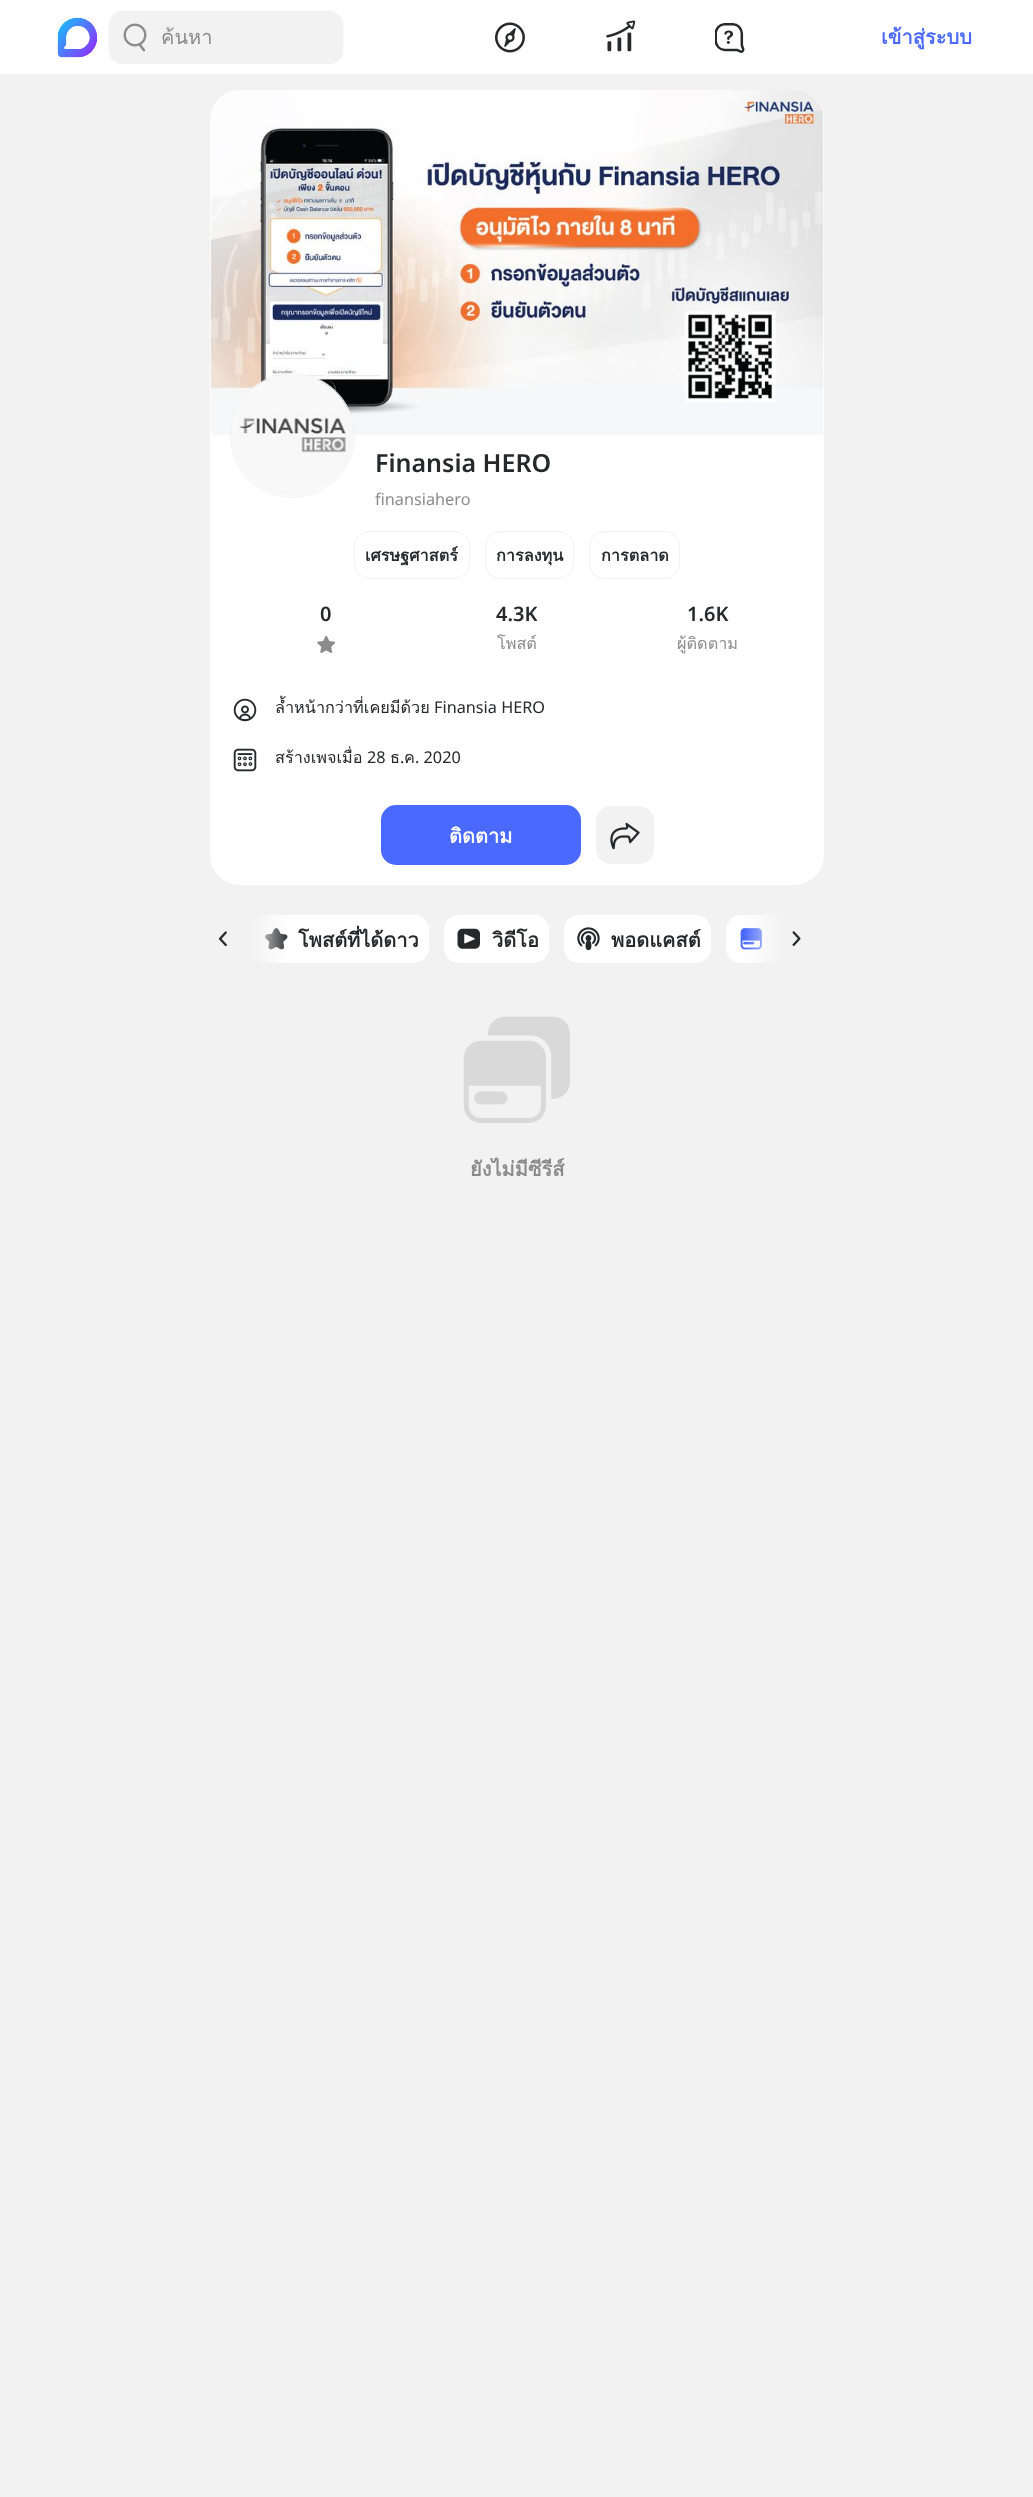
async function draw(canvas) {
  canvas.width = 1033
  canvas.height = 2497
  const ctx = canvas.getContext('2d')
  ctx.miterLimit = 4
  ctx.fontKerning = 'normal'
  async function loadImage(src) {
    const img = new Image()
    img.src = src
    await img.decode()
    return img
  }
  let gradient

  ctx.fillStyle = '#f2f2f2'
  ctx.fillRect(0, 0, 1033, 2497)
  ctx.fillStyle = '#fff'
  ctx.fillRect(0, 0, 1033, 74)
  ctx.drawImage(await loadImage('image0.png'), 57, 17, 41, 41)
  ctx.fillStyle = '#f2f2f2'
  ctx.beginPath()
  ctx.roundRect(108.5, 10.5, 235, 54, 14.5)
  ctx.fill()
  ctx.strokeStyle = '#fcfcfc'
  ctx.stroke()
  ctx.drawImage(await loadImage('image1.png'), 123, 23, 24, 29)
  ctx.save()
  ctx.beginPath()
  ctx.rect(161, 23, 174, 30)
  ctx.clip()
  ctx.font = '20px Loma'
  ctx.fillStyle = '#8b8b8b'
  ctx.fillText('ค้นหา', 161, 44)
  ctx.restore()
  ctx.drawImage(await loadImage('image2.png'), 495, 22, 30, 31)
  ctx.drawImage(await loadImage('image3.png'), 606, 20, 30, 32)
  ctx.drawImage(await loadImage('image4.png'), 715, 23, 30, 30)
  ctx.font = 'bold 20px Loma'
  ctx.fillStyle = '#4a69ff'
  ctx.fillText('เข้าสู่ระบบ', 881, 44)
  ctx.fillStyle = '#fff'
  ctx.beginPath()
  ctx.roundRect(210, 90, 614, 795, 30)
  ctx.fill()
  ctx.drawImage(await loadImage('image5.png'), 210, 90, 614, 345)
  ctx.beginPath()
  ctx.arc(292.5, 435.5, 62, 0, 2 * Math.PI)
  ctx.strokeStyle = '#f2f2f2'
  ctx.stroke()
  ctx.drawImage(await loadImage('image6.png'), 231, 374, 122, 122)
  ctx.font = '600 25px Noto Sans'
  ctx.fillStyle = '#27282a'
  ctx.fillText('Finansia HERO', 375, 472)
  ctx.font = '16.25px Noto Sans'
  ctx.fillStyle = '#8b8b8b'
  ctx.fillText('finansiahero', 375, 505)
  ctx.beginPath()
  ctx.roundRect(354.5, 531.5, 115, 47, 14.5)
  ctx.stroke()
  ctx.font = 'bold 16.25px Loma'
  ctx.fillStyle = '#27282a'
  ctx.fillText('เศรษฐศาสตร์', 365, 561)
  ctx.beginPath()
  ctx.roundRect(485.5, 531.5, 88, 47, 14.5)
  ctx.stroke()
  ctx.fillText('การลงทุน', 496, 561)
  ctx.beginPath()
  ctx.roundRect(589.5, 531.5, 90, 47, 14.5)
  ctx.stroke()
  ctx.fillText('การตลาด', 601, 561)
  ctx.font = '600 20px Noto Sans'
  ctx.fillText('0', 320, 621)
  ctx.drawImage(await loadImage('image7.png'), 317, 635, 19, 18)
  ctx.fillText('4.3K', 496, 621)
  ctx.font = '16.25px Loma'
  ctx.fillStyle = '#8b8b8b'
  ctx.fillText('โพสต์', 497, 649)
  ctx.font = '600 20px Noto Sans'
  ctx.fillStyle = '#27282a'
  ctx.fillText('1.6K', 687, 621)
  ctx.font = '16.25px Loma'
  ctx.fillStyle = '#8b8b8b'
  ctx.fillText('ผู้ติดตาม', 677, 649)
  ctx.drawImage(await loadImage('image8.png'), 233, 698, 24, 24)
  ctx.fillStyle = '#27282a'
  ctx.fillText('ล้ำหน้ากว่าที่เคยมีด้วย', 275, 713)
  ctx.font = '16.25px Noto Sans'
  ctx.fillText('Finansia HERO', 434, 713)
  ctx.drawImage(await loadImage('image9.png'), 233, 748, 24, 24)
  ctx.font = '16.25px Loma'
  ctx.fillText('สร้างเพจเมื่อ', 275, 763)
  ctx.font = '16.25px Noto Sans'
  ctx.fillText('28', 367, 763)
  ctx.font = '16.25px Loma'
  ctx.fillText('ธ', 390, 763)
  ctx.font = '16.25px Noto Sans'
  ctx.fillText('.', 400, 763)
  ctx.font = '16.25px Loma'
  ctx.fillText('ค', 404, 763)
  ctx.font = '16.25px Noto Sans'
  ctx.fillText('. 2020', 415, 763)
  ctx.fillStyle = '#4a69ff'
  ctx.beginPath()
  ctx.roundRect(381, 805, 200, 60, 15)
  ctx.fill()
  ctx.font = 'bold 20px Loma'
  ctx.fillStyle = '#fff'
  ctx.fillText('ติดตาม', 449, 843)
  ctx.fillStyle = '#f2f2f2'
  ctx.beginPath()
  ctx.roundRect(596, 806, 58, 58, 15)
  ctx.fill()
  ctx.drawImage(await loadImage('image10.png'), 610, 822, 30, 28)
  ctx.fillStyle = '#fff'
  ctx.beginPath()
  ctx.roundRect(251, 915, 178, 48, 15)
  ctx.fill()
  ctx.drawImage(await loadImage('image12.png'), 265, 928, 23, 22)
  gradient = ctx.createLinearGradient(290, 939, 210, 939)
  gradient.addColorStop(0, '#f2f2f200')
  gradient.addColorStop(0.5, '#f2f2f2')
  gradient.addColorStop(1, '#f2f2f2')
  ctx.fillStyle = gradient
  ctx.fillRect(251, 915, 37, 48)
  ctx.drawImage(await loadImage('image11.png'), 218, 931, 9, 16)
  ctx.fillStyle = '#27282a'
  ctx.fillText('โพสต์ที่ได้ดาว', 298, 947)
  ctx.fillStyle = '#fff'
  ctx.beginPath()
  ctx.roundRect(444, 915, 105, 48, 15)
  ctx.fill()
  ctx.drawImage(await loadImage('image13.png'), 457, 928, 23, 21)
  ctx.save()
  ctx.beginPath()
  ctx.rect(491, 924, 48, 30)
  ctx.clip()
  ctx.fillStyle = '#27282a'
  ctx.fillText('วิดีโอ', 492, 947)
  ctx.restore()
  ctx.beginPath()
  ctx.roundRect(564, 915, 147, 48, 15)
  ctx.fill()
  ctx.drawImage(await loadImage('image14.png'), 577, 927, 23, 23)
  ctx.fillStyle = '#27282a'
  ctx.fillText('พอดแคสต์', 611, 947)
  ctx.fillStyle = '#fff'
  ctx.beginPath()
  ctx.roundRect(726, 915, 58, 48, [15, 0, 0, 15])
  ctx.fill()
  ctx.drawImage(await loadImage('image15.png'), 740, 928, 22, 22)
  gradient = ctx.createLinearGradient(744, 939, 824, 939)
  gradient.addColorStop(0, '#f2f2f200')
  gradient.addColorStop(0.5, '#f2f2f2')
  gradient.addColorStop(1, '#f2f2f2')
  ctx.fillStyle = gradient
  ctx.fillRect(745, 915, 39, 48)
  ctx.drawImage(await loadImage('image16.png'), 792, 931, 9, 15)
  ctx.drawImage(await loadImage('image17.png'), 463, 1016, 107, 107)
  ctx.fillStyle = '#8b8b8b'
  ctx.fillText('ยังไม่มีซีรีส์', 470, 1176)
}

draw(document.querySelector('canvas'))
